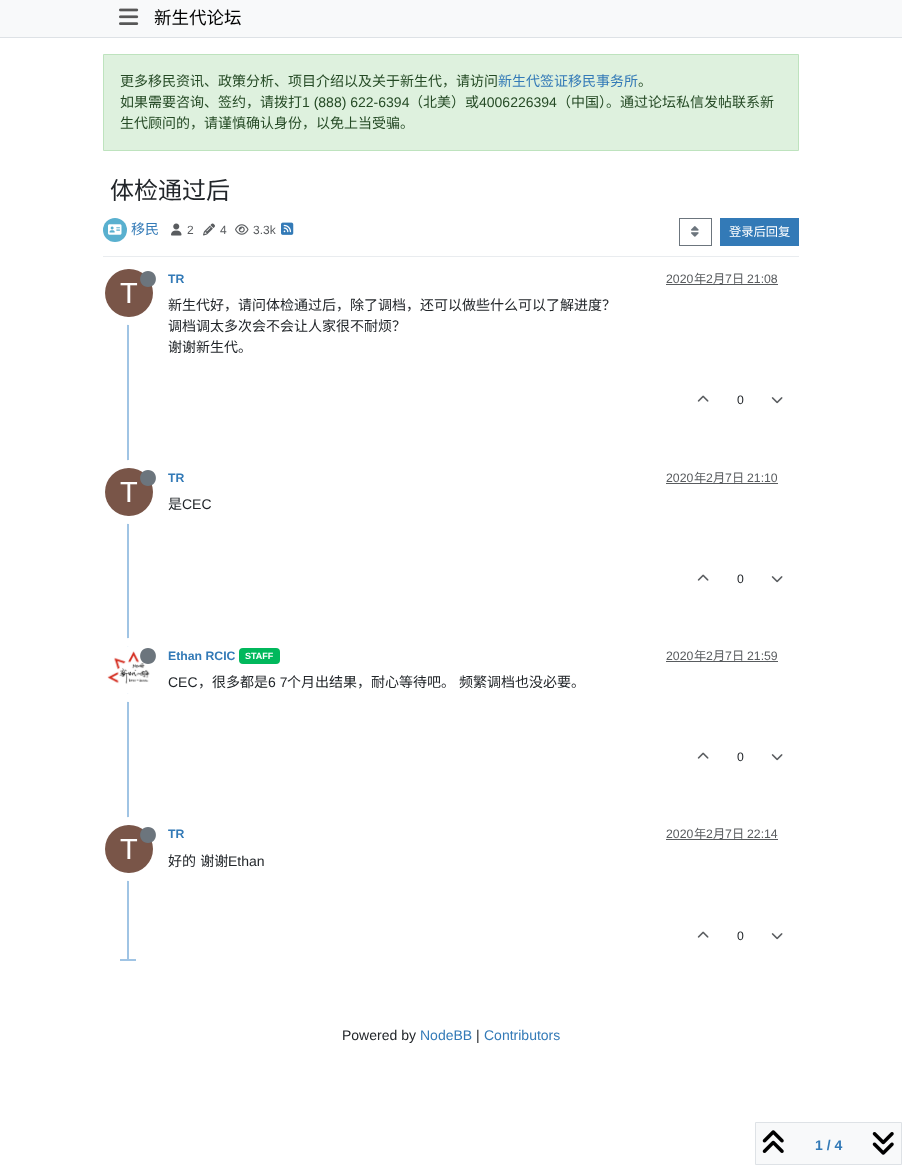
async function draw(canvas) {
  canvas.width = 902
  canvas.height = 1165
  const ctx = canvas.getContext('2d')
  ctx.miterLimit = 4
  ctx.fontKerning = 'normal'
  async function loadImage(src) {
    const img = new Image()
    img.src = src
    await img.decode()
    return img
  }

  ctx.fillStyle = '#fff'
  ctx.fillRect(0, 0, 902, 1165)
  ctx.fillStyle = '#f8f9fa'
  ctx.fillRect(0, 0, 902, 37)
  ctx.fillStyle = '#dee2e6'
  ctx.fillRect(0, 37, 902, 1)
  ctx.drawImage(await loadImage('image0.png'), 119, 8, 20, 17)
  ctx.font = '17.5px Noto Sans CJK SC'
  ctx.fillStyle = '#000'
  ctx.fillText('新生代论坛', 154, 24)
  ctx.fillStyle = '#def1de'
  ctx.beginPath()
  ctx.rect(103.5, 54.5, 695, 96)
  ctx.fill()
  ctx.strokeStyle = '#bee3be'
  ctx.stroke()
  ctx.font = '14px Noto Sans CJK SC'
  ctx.fillStyle = '#254a25'
  ctx.fillText('更多移民资讯、政策分析、项目介绍以及关于新生代，请访问', 120, 86)
  ctx.fillStyle = '#337ab7'
  ctx.fillText('新生代签证移民事务所', 498, 86)
  ctx.fillStyle = '#254a25'
  ctx.fillText('。', 638, 86)
  ctx.fillText('如果需要咨询、签约，请拨打', 120, 107)
  ctx.font = '14px Liberation Sans'
  ctx.fillText('1 (888) 622-6394', 302, 107)
  ctx.font = '14px Noto Sans CJK SC'
  ctx.fillText('（北美）或', 409, 107)
  ctx.font = '14px Liberation Sans'
  ctx.fillText('4006226394', 479, 107)
  ctx.font = '14px Noto Sans CJK SC'
  ctx.fillText('（中国）。通过论坛私信发帖联系新', 557, 107)
  ctx.fillText('生代顾问的，请谨慎确认身份，以免上当受骗。', 120, 128)
  ctx.font = '24px Noto Sans CJK SC'
  ctx.fillStyle = '#212529'
  ctx.fillText('体检通过后', 110, 199)
  ctx.fillStyle = '#e9ecef'
  ctx.fillRect(103, 256, 696, 1)
  ctx.fillStyle = '#59b0cf'
  ctx.beginPath()
  ctx.arc(115, 230, 12, 0, 2 * Math.PI)
  ctx.fill()
  ctx.drawImage(await loadImage('image1.png'), 108, 224, 14, 11)
  ctx.font = '14px Noto Sans CJK SC'
  ctx.fillStyle = '#337ab7'
  ctx.fillText('移民', 131, 234)
  ctx.drawImage(await loadImage('image2.png'), 171, 223, 11, 13)
  ctx.font = '12px Liberation Sans'
  ctx.fillStyle = '#595c5f'
  ctx.fillText('2', 187, 234)
  ctx.drawImage(await loadImage('image3.png'), 203, 223, 12, 13)
  ctx.fillText('4', 220, 234)
  ctx.drawImage(await loadImage('image4.png'), 235, 224, 14, 11)
  ctx.fillText('3.3k', 253, 234)
  ctx.drawImage(await loadImage('image5.png'), 281, 222, 13, 13)
  ctx.strokeStyle = '#6c757d'
  ctx.strokeRect(679.5, 218.5, 32, 27)
  ctx.drawImage(await loadImage('image6.png'), 691, 226, 8, 11)
  ctx.fillStyle = '#337ab7'
  ctx.fillRect(720, 218, 79, 28)
  ctx.font = '12.25px Noto Sans CJK SC'
  ctx.fillStyle = '#fff'
  ctx.fillText('登录后回复', 729, 236)
  ctx.fillStyle = '#a0c4e4'
  ctx.fillRect(127, 267, 2, 694)
  ctx.font = 'bold 12.25px Liberation Sans'
  ctx.fillStyle = '#337ab7'
  ctx.fillText('TR', 168, 283)
  ctx.font = '12.25px Liberation Sans'
  ctx.fillStyle = '#595c5f'
  ctx.fillText('2020', 666, 283)
  ctx.fillRect(666, 284, 112, 1)
  ctx.font = '12.25px Noto Sans CJK SC'
  ctx.fillText('年', 694, 283)
  ctx.font = '12.25px Liberation Sans'
  ctx.fillText('2', 706, 283)
  ctx.font = '12.25px Noto Sans CJK SC'
  ctx.fillText('月', 713, 283)
  ctx.font = '12.25px Liberation Sans'
  ctx.fillText('7', 725, 283)
  ctx.font = '12.25px Noto Sans CJK SC'
  ctx.fillText('日', 732, 283)
  ctx.font = '12.25px Liberation Sans'
  ctx.fillText('21:08', 747, 283)
  ctx.beginPath()
  ctx.arc(129, 293, 28, 0, 2 * Math.PI)
  ctx.strokeStyle = '#fff'
  ctx.lineWidth = 8
  ctx.stroke()
  ctx.fillStyle = '#795548'
  ctx.beginPath()
  ctx.arc(129, 293, 24, 0, 2 * Math.PI)
  ctx.fill()
  ctx.fillStyle = '#6c757d'
  ctx.beginPath()
  ctx.moveTo(148, 287)
  ctx.bezierCurveTo(158.5, 287, 158.5, 271, 148, 271)
  ctx.bezierCurveTo(137.5, 271, 137.5, 287, 148, 287)
  ctx.closePath()
  ctx.fill()
  ctx.font = '29px Liberation Sans'
  ctx.fillStyle = '#fff'
  ctx.fillText('T', 120, 303)
  ctx.font = '14px Noto Sans CJK SC'
  ctx.fillStyle = '#212529'
  ctx.fillText('新生代好，请问体检通过后，除了调档，还可以做些什么可以了解进度？', 168, 310)
  ctx.fillText('调档调太多次会不会让人家很不耐烦？', 168, 331)
  ctx.fillText('谢谢新生代。', 168, 352)
  ctx.drawImage(await loadImage('image7.png'), 697, 395, 12, 7)
  ctx.font = '12.25px Liberation Sans'
  ctx.fillText('0', 737, 404)
  ctx.drawImage(await loadImage('image8.png'), 771, 397, 12, 7)
  ctx.font = 'bold 12.25px Liberation Sans'
  ctx.fillStyle = '#337ab7'
  ctx.fillText('TR', 168, 482)
  ctx.font = '12.25px Liberation Sans'
  ctx.fillStyle = '#595c5f'
  ctx.fillText('2020', 666, 482)
  ctx.fillRect(666, 483, 112, 1)
  ctx.font = '12.25px Noto Sans CJK SC'
  ctx.fillText('年', 694, 482)
  ctx.font = '12.25px Liberation Sans'
  ctx.fillText('2', 706, 482)
  ctx.font = '12.25px Noto Sans CJK SC'
  ctx.fillText('月', 713, 482)
  ctx.font = '12.25px Liberation Sans'
  ctx.fillText('7', 725, 482)
  ctx.font = '12.25px Noto Sans CJK SC'
  ctx.fillText('日', 732, 482)
  ctx.font = '12.25px Liberation Sans'
  ctx.fillText('21:10', 747, 482)
  ctx.beginPath()
  ctx.arc(129, 492, 28, 0, 2 * Math.PI)
  ctx.stroke()
  ctx.fillStyle = '#795548'
  ctx.beginPath()
  ctx.arc(129, 492, 24, 0, 2 * Math.PI)
  ctx.fill()
  ctx.fillStyle = '#6c757d'
  ctx.beginPath()
  ctx.moveTo(148, 486)
  ctx.bezierCurveTo(158.5, 486, 158.5, 470, 148, 470)
  ctx.bezierCurveTo(137.5, 470, 137.5, 486, 148, 486)
  ctx.closePath()
  ctx.fill()
  ctx.font = '29px Liberation Sans'
  ctx.fillStyle = '#fff'
  ctx.fillText('T', 120, 502)
  ctx.font = '14px Noto Sans CJK SC'
  ctx.fillStyle = '#212529'
  ctx.fillText('是', 168, 509)
  ctx.font = '14px Liberation Sans'
  ctx.fillText('CEC', 182, 509)
  ctx.drawImage(await loadImage('image7.png'), 697, 574, 12, 7)
  ctx.font = '12.25px Liberation Sans'
  ctx.fillText('0', 737, 583)
  ctx.drawImage(await loadImage('image8.png'), 771, 576, 12, 7)
  ctx.beginPath()
  ctx.arc(129, 670, 28, 0, 2 * Math.PI)
  ctx.stroke()
  ctx.drawImage(await loadImage('image9.png'), 107, 646, 43, 48)
  ctx.fillStyle = '#6c757d'
  ctx.beginPath()
  ctx.moveTo(148, 664)
  ctx.bezierCurveTo(158.5, 664, 158.5, 648, 148, 648)
  ctx.bezierCurveTo(137.5, 648, 137.5, 664, 148, 664)
  ctx.closePath()
  ctx.fill()
  ctx.font = 'bold 12.25px Liberation Sans'
  ctx.fillStyle = '#337ab7'
  ctx.fillText('Ethan RCIC', 168, 660)
  ctx.fillStyle = '#01b85c'
  ctx.beginPath()
  ctx.roundRect(239, 648, 41, 16, 4)
  ctx.fill()
  ctx.font = 'bold 9px Liberation Sans'
  ctx.fillStyle = '#fff'
  ctx.fillText('STAFF', 245, 659)
  ctx.font = '12.25px Liberation Sans'
  ctx.fillStyle = '#595c5f'
  ctx.fillText('2020', 666, 660)
  ctx.fillRect(666, 661, 112, 1)
  ctx.font = '12.25px Noto Sans CJK SC'
  ctx.fillText('年', 694, 660)
  ctx.font = '12.25px Liberation Sans'
  ctx.fillText('2', 706, 660)
  ctx.font = '12.25px Noto Sans CJK SC'
  ctx.fillText('月', 713, 660)
  ctx.font = '12.25px Liberation Sans'
  ctx.fillText('7', 725, 660)
  ctx.font = '12.25px Noto Sans CJK SC'
  ctx.fillText('日', 732, 660)
  ctx.font = '12.25px Liberation Sans'
  ctx.fillText('21:59', 747, 660)
  ctx.font = '14px Liberation Sans'
  ctx.fillStyle = '#212529'
  ctx.fillText('CEC', 168, 687)
  ctx.font = '14px Noto Sans CJK SC'
  ctx.fillText('，很多都是', 198, 687)
  ctx.font = '14px Liberation Sans'
  ctx.fillText('6 7', 268, 687)
  ctx.font = '14px Noto Sans CJK SC'
  ctx.fillText('个月出结果，耐心等待吧。', 287, 687)
  ctx.fillText('频繁调档也没必要。', 459, 687)
  ctx.drawImage(await loadImage('image7.png'), 697, 752, 12, 7)
  ctx.font = '12.25px Liberation Sans'
  ctx.fillText('0', 737, 761)
  ctx.drawImage(await loadImage('image8.png'), 771, 754, 12, 7)
  ctx.font = 'bold 12.25px Liberation Sans'
  ctx.fillStyle = '#337ab7'
  ctx.fillText('TR', 168, 838)
  ctx.font = '12.25px Liberation Sans'
  ctx.fillStyle = '#595c5f'
  ctx.fillText('2020', 666, 838)
  ctx.fillRect(666, 839, 112, 1)
  ctx.font = '12.25px Noto Sans CJK SC'
  ctx.fillText('年', 694, 838)
  ctx.font = '12.25px Liberation Sans'
  ctx.fillText('2', 706, 838)
  ctx.font = '12.25px Noto Sans CJK SC'
  ctx.fillText('月', 713, 838)
  ctx.font = '12.25px Liberation Sans'
  ctx.fillText('7', 725, 838)
  ctx.font = '12.25px Noto Sans CJK SC'
  ctx.fillText('日', 732, 838)
  ctx.font = '12.25px Liberation Sans'
  ctx.fillText('22:14', 747, 838)
  ctx.beginPath()
  ctx.arc(129, 849, 28, 0, 2 * Math.PI)
  ctx.stroke()
  ctx.fillStyle = '#795548'
  ctx.beginPath()
  ctx.arc(129, 849, 24, 0, 2 * Math.PI)
  ctx.fill()
  ctx.fillStyle = '#6c757d'
  ctx.beginPath()
  ctx.moveTo(148, 843)
  ctx.bezierCurveTo(158.5, 843, 158.5, 827, 148, 827)
  ctx.bezierCurveTo(137.5, 827, 137.5, 843, 148, 843)
  ctx.closePath()
  ctx.fill()
  ctx.font = '29px Liberation Sans'
  ctx.fillStyle = '#fff'
  ctx.fillText('T', 120, 859)
  ctx.wordSpacing = '1px'
  ctx.font = '14px Noto Sans CJK SC'
  ctx.fillStyle = '#212529'
  ctx.fillText('好的 谢谢', 168, 866)
  ctx.wordSpacing = '0px'
  ctx.font = '14px Liberation Sans'
  ctx.fillText('Ethan', 228, 866)
  ctx.drawImage(await loadImage('image7.png'), 697, 931, 12, 7)
  ctx.font = '12.25px Liberation Sans'
  ctx.fillText('0', 737, 940)
  ctx.drawImage(await loadImage('image8.png'), 771, 933, 12, 7)
  ctx.fillStyle = '#a0c4e4'
  ctx.fillRect(120, 959, 16, 2)
  ctx.fillStyle = '#f8f9fa'
  ctx.beginPath()
  ctx.rect(755.5, 1122.5, 146, 42)
  ctx.fill()
  ctx.strokeStyle = '#dee2e6'
  ctx.lineWidth = 1
  ctx.stroke()
  ctx.drawImage(await loadImage('image10.png'), 762, 1130, 22, 23)
  ctx.font = 'bold 14px Liberation Sans'
  ctx.fillStyle = '#337ab7'
  ctx.fillText('1 / 4', 815, 1150)
  ctx.drawImage(await loadImage('image11.png'), 872, 1132, 22, 23)
  ctx.font = '14px Liberation Sans'
  ctx.fillStyle = '#212529'
  ctx.fillText('Powered by', 342, 1040)
  ctx.fillStyle = '#337ab7'
  ctx.fillText('NodeBB', 420, 1040)
  ctx.fillStyle = '#212529'
  ctx.fillText('|', 476, 1040)
  ctx.fillStyle = '#337ab7'
  ctx.fillText('Contributors', 484, 1040)
}

draw(document.querySelector('canvas'))
